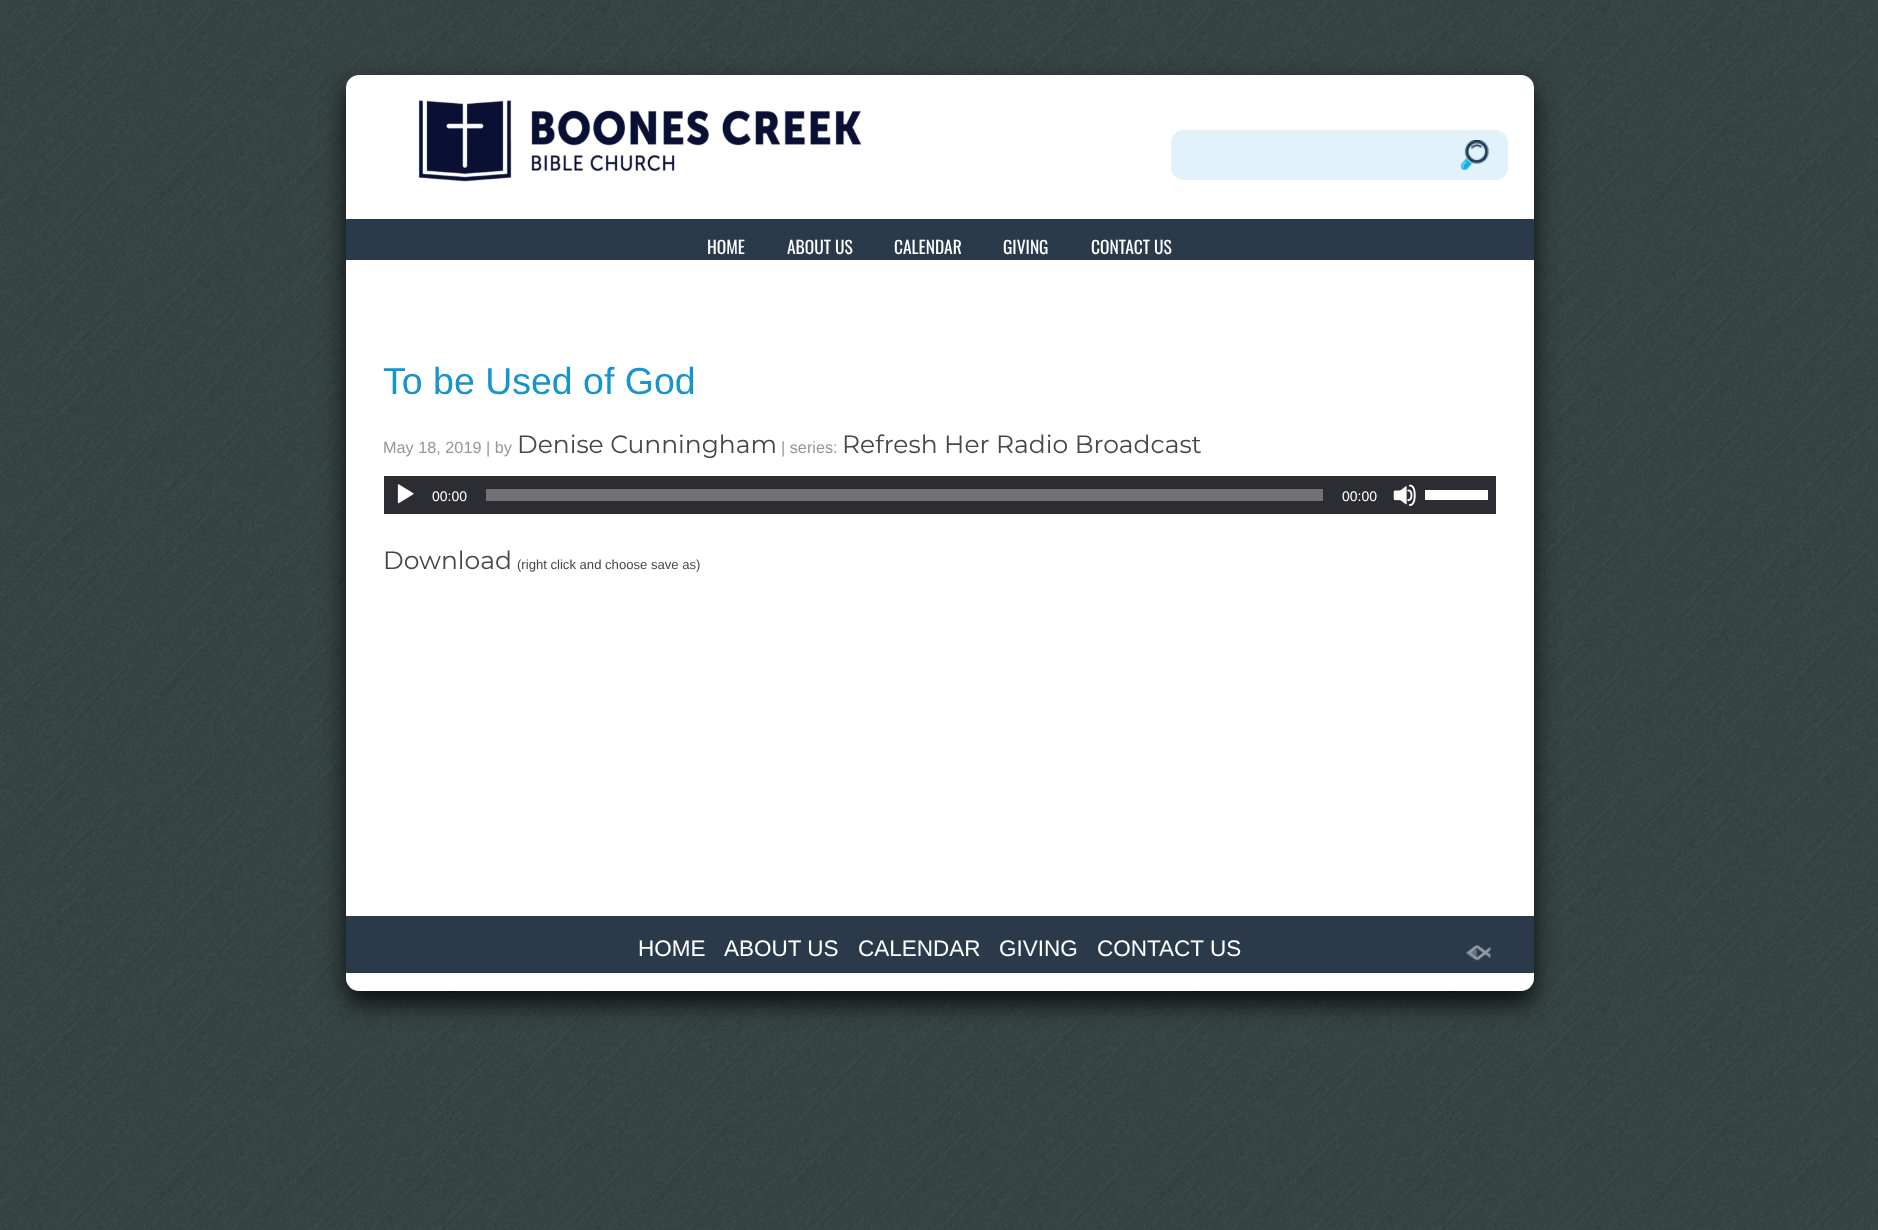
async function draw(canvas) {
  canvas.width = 1878
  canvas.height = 1230
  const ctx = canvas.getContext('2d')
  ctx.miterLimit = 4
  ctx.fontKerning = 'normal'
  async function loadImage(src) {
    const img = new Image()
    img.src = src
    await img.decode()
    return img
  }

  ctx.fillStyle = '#6f8a8a'
  ctx.fillRect(0, 0, 1878, 1230)
  ctx.drawImage(await loadImage('image0.png'), 0, 0, 1878, 1230)
  ctx.fillStyle = '#000000cc'
  ctx.filter = 'blur(12.5px)'
  ctx.beginPath()
  ctx.roundRect(346, 86, 1188, 917, 13)
  ctx.fill()
  ctx.filter = 'none'
  ctx.fillStyle = '#fff'
  ctx.beginPath()
  ctx.roundRect(346, 75, 1188, 916, 13)
  ctx.fill()
  ctx.drawImage(await loadImage('image1.png'), 418, 100, 444, 82)
  ctx.fillStyle = '#e1f2fa'
  ctx.beginPath()
  ctx.roundRect(1171, 130, 337, 50, 13)
  ctx.fill()
  ctx.drawImage(await loadImage('image2.png'), 1461, 140, 28, 30)
  ctx.fillStyle = '#2a3a4b'
  ctx.fillRect(346, 219, 1188, 41)
  ctx.font = '17.5px Oswald'
  ctx.fillStyle = '#fff'
  ctx.fillText('HOME', 707, 254)
  ctx.fillText('ABOUT US', 787, 254)
  ctx.fillText('CALENDAR', 894, 254)
  ctx.fillText('GIVING', 1003, 254)
  ctx.fillText('CONTACT US', 1091, 254)
  ctx.font = '37.5px Liberation Sans'
  ctx.fillStyle = '#1694ce'
  ctx.fillText('To be Used of God', 383, 394)
  ctx.font = '16.25px Liberation Sans'
  ctx.fillStyle = '#999792'
  ctx.fillText('May 18, 2019 | by', 383, 453)
  ctx.font = '25px Montserrat'
  ctx.fillStyle = '#474647'
  ctx.fillText('Denise Cunningham', 517, 453)
  ctx.font = '16.25px Liberation Sans'
  ctx.fillStyle = '#999792'
  ctx.fillText('| series:', 781, 453)
  ctx.font = '25px Montserrat'
  ctx.fillStyle = '#474647'
  ctx.fillText('Refresh Her Radio Broadcast', 842, 453)
  ctx.fillStyle = '#2c2d33'
  ctx.fillRect(384, 476, 1112, 38)
  ctx.drawImage(await loadImage('image3.png'), 397, 484, 17, 20)
  ctx.font = '14px Liberation Sans'
  ctx.fillStyle = '#fff'
  ctx.fillText('00:00', 432, 501)
  ctx.fillStyle = '#727276'
  ctx.fillRect(486, 489, 837, 12)
  ctx.fillStyle = '#fff'
  ctx.fillText('00:00', 1342, 501)
  ctx.drawImage(await loadImage('image4.png'), 1393, 484, 23, 22)
  ctx.fillRect(1425, 490, 63, 10)
  ctx.font = '25px Montserrat'
  ctx.fillStyle = '#474647'
  ctx.fillText('Download', 383, 569)
  ctx.font = '13.1px Liberation Sans'
  ctx.fillText('(right click and choose save as)', 517, 569)
  ctx.fillStyle = '#2a3a4b'
  ctx.fillRect(346, 916, 1188, 57)
  ctx.font = '22.5px Liberation Sans'
  ctx.fillStyle = '#fff'
  ctx.fillText('HOME', 638, 956)
  ctx.fillText('ABOUT US', 724, 956)
  ctx.fillText('CALENDAR', 858, 956)
  ctx.fillText('GIVING', 999, 956)
  ctx.fillText('CONTACT US', 1097, 956)
  ctx.drawImage(await loadImage('image5.png'), 1466, 945, 25, 16)
}

draw(document.querySelector('canvas'))
